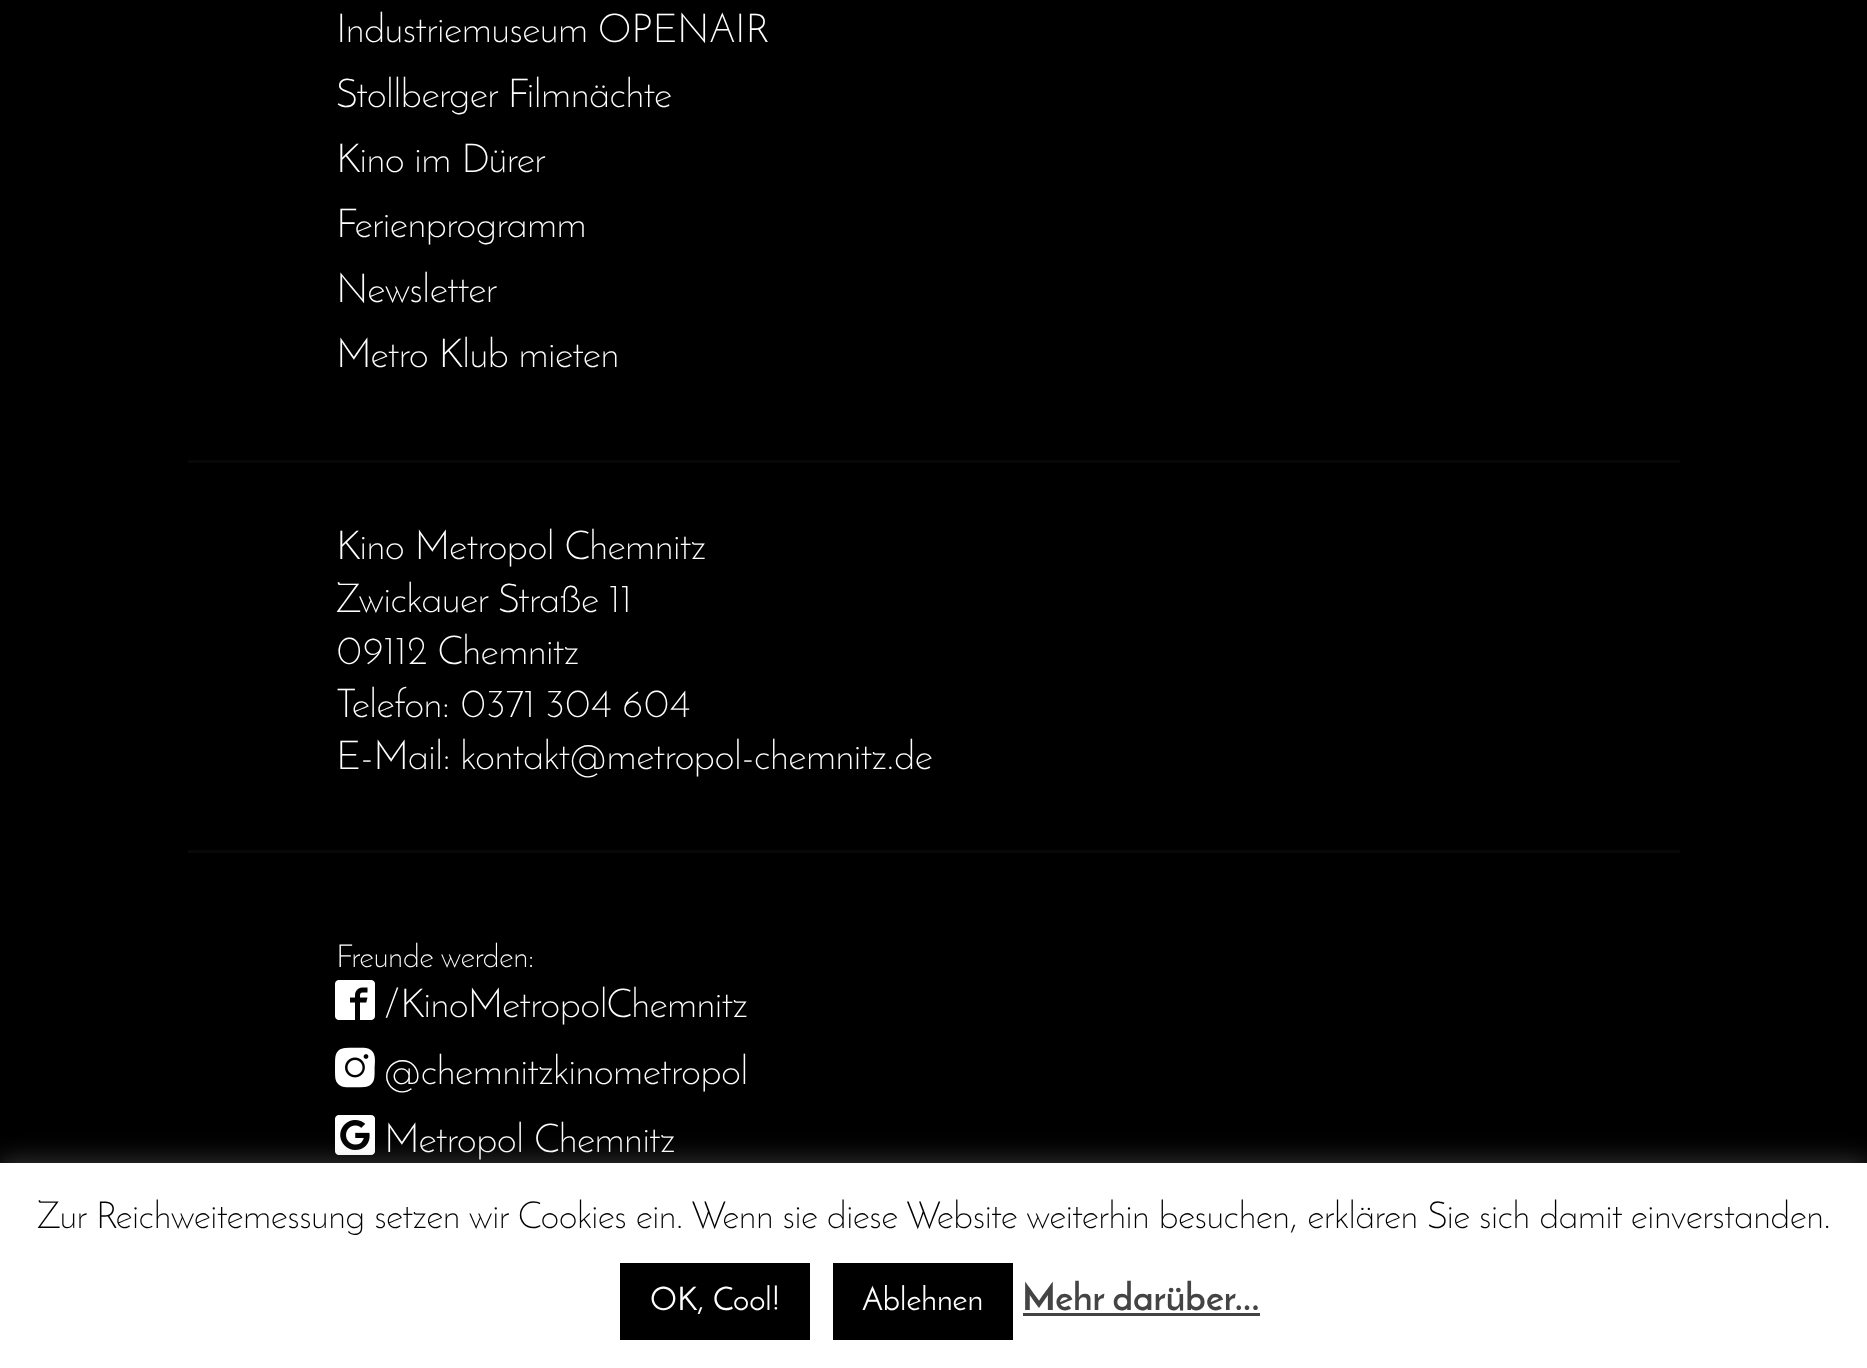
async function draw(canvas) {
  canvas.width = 1867
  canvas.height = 1368
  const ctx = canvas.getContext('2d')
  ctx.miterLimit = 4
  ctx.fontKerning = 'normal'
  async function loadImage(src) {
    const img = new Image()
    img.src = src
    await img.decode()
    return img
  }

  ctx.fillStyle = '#000'
  ctx.fillRect(0, 0, 1867, 1368)
  ctx.font = '300 40px Josefin Sans'
  ctx.fillStyle = '#fff'
  ctx.fillText('Industriemuseum OPENAIR', 336, 42)
  ctx.fillText('Stollberger Filmnächte', 336, 107)
  ctx.fillText('Kino im Dürer', 336, 172)
  ctx.fillText('Ferienprogramm', 336, 237)
  ctx.fillText('Newsletter', 336, 302)
  ctx.fillText('Metro Klub mieten', 336, 367)
  ctx.fillStyle = '#080808'
  ctx.fillRect(188, 460, 1492, 3)
  ctx.fillStyle = '#fff'
  ctx.fillText('Kino Metropol Chemnitz', 336, 559)
  ctx.fillText('Zwickauer Straße 11', 336, 612)
  ctx.fillText('09112 Chemnitz', 336, 664)
  ctx.fillText('Telefon: 0371 304 604', 336, 717)
  ctx.fillText('E-Mail: kontakt@metropol-chemnitz.de', 336, 769)
  ctx.fillStyle = '#080808'
  ctx.fillRect(188, 850, 1492, 3)
  ctx.font = '300 32px Josefin Sans'
  ctx.fillStyle = '#fff'
  ctx.fillText('Freunde werden:', 336, 967)
  ctx.drawImage(await loadImage('image0.png'), 335, 980, 40, 40)
  ctx.font = '300 40px Josefin Sans'
  ctx.fillText('/KinoMetropolChemnitz', 384, 1017)
  ctx.drawImage(await loadImage('image1.png'), 335, 1047, 40, 41)
  ctx.fillText('@chemnitzkinometropol', 384, 1084)
  ctx.drawImage(await loadImage('image2.png'), 335, 1115, 40, 40)
  ctx.fillText('Metropol Chemnitz', 384, 1152)
  ctx.fillStyle = '#acabab4d'
  ctx.filter = 'blur(12.5px)'
  ctx.beginPath()
  ctx.rect(0, 1160, 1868, 208)
  ctx.fill()
  ctx.filter = 'none'
  ctx.fillStyle = '#fff'
  ctx.fillRect(0, 1163, 1867, 205)
  ctx.font = '300 37.5px Josefin Sans'
  ctx.fillStyle = '#000'
  ctx.fillText('Zur Reichweitemessung setzen wir Cookies ein. Wenn sie diese Website weiterhin besuchen, erklären Sie sich damit einverstanden.', 37, 1228)
  ctx.fillRect(620, 1263, 190, 77)
  ctx.font = '32.5px Josefin Sans'
  ctx.fillStyle = '#fff'
  ctx.fillText('OK, Cool!', 650, 1310)
  ctx.fillStyle = '#000'
  ctx.fillRect(833, 1263, 180, 77)
  ctx.fillStyle = '#fff'
  ctx.fillText('Ablehnen', 862, 1310)
  ctx.font = 'bold 37.5px Josefin Sans'
  ctx.fillStyle = '#444'
  ctx.fillText('Mehr darüber...', 1022, 1310)
  ctx.fillRect(1023, 1313, 237, 3)
}

draw(document.querySelector('canvas'))
